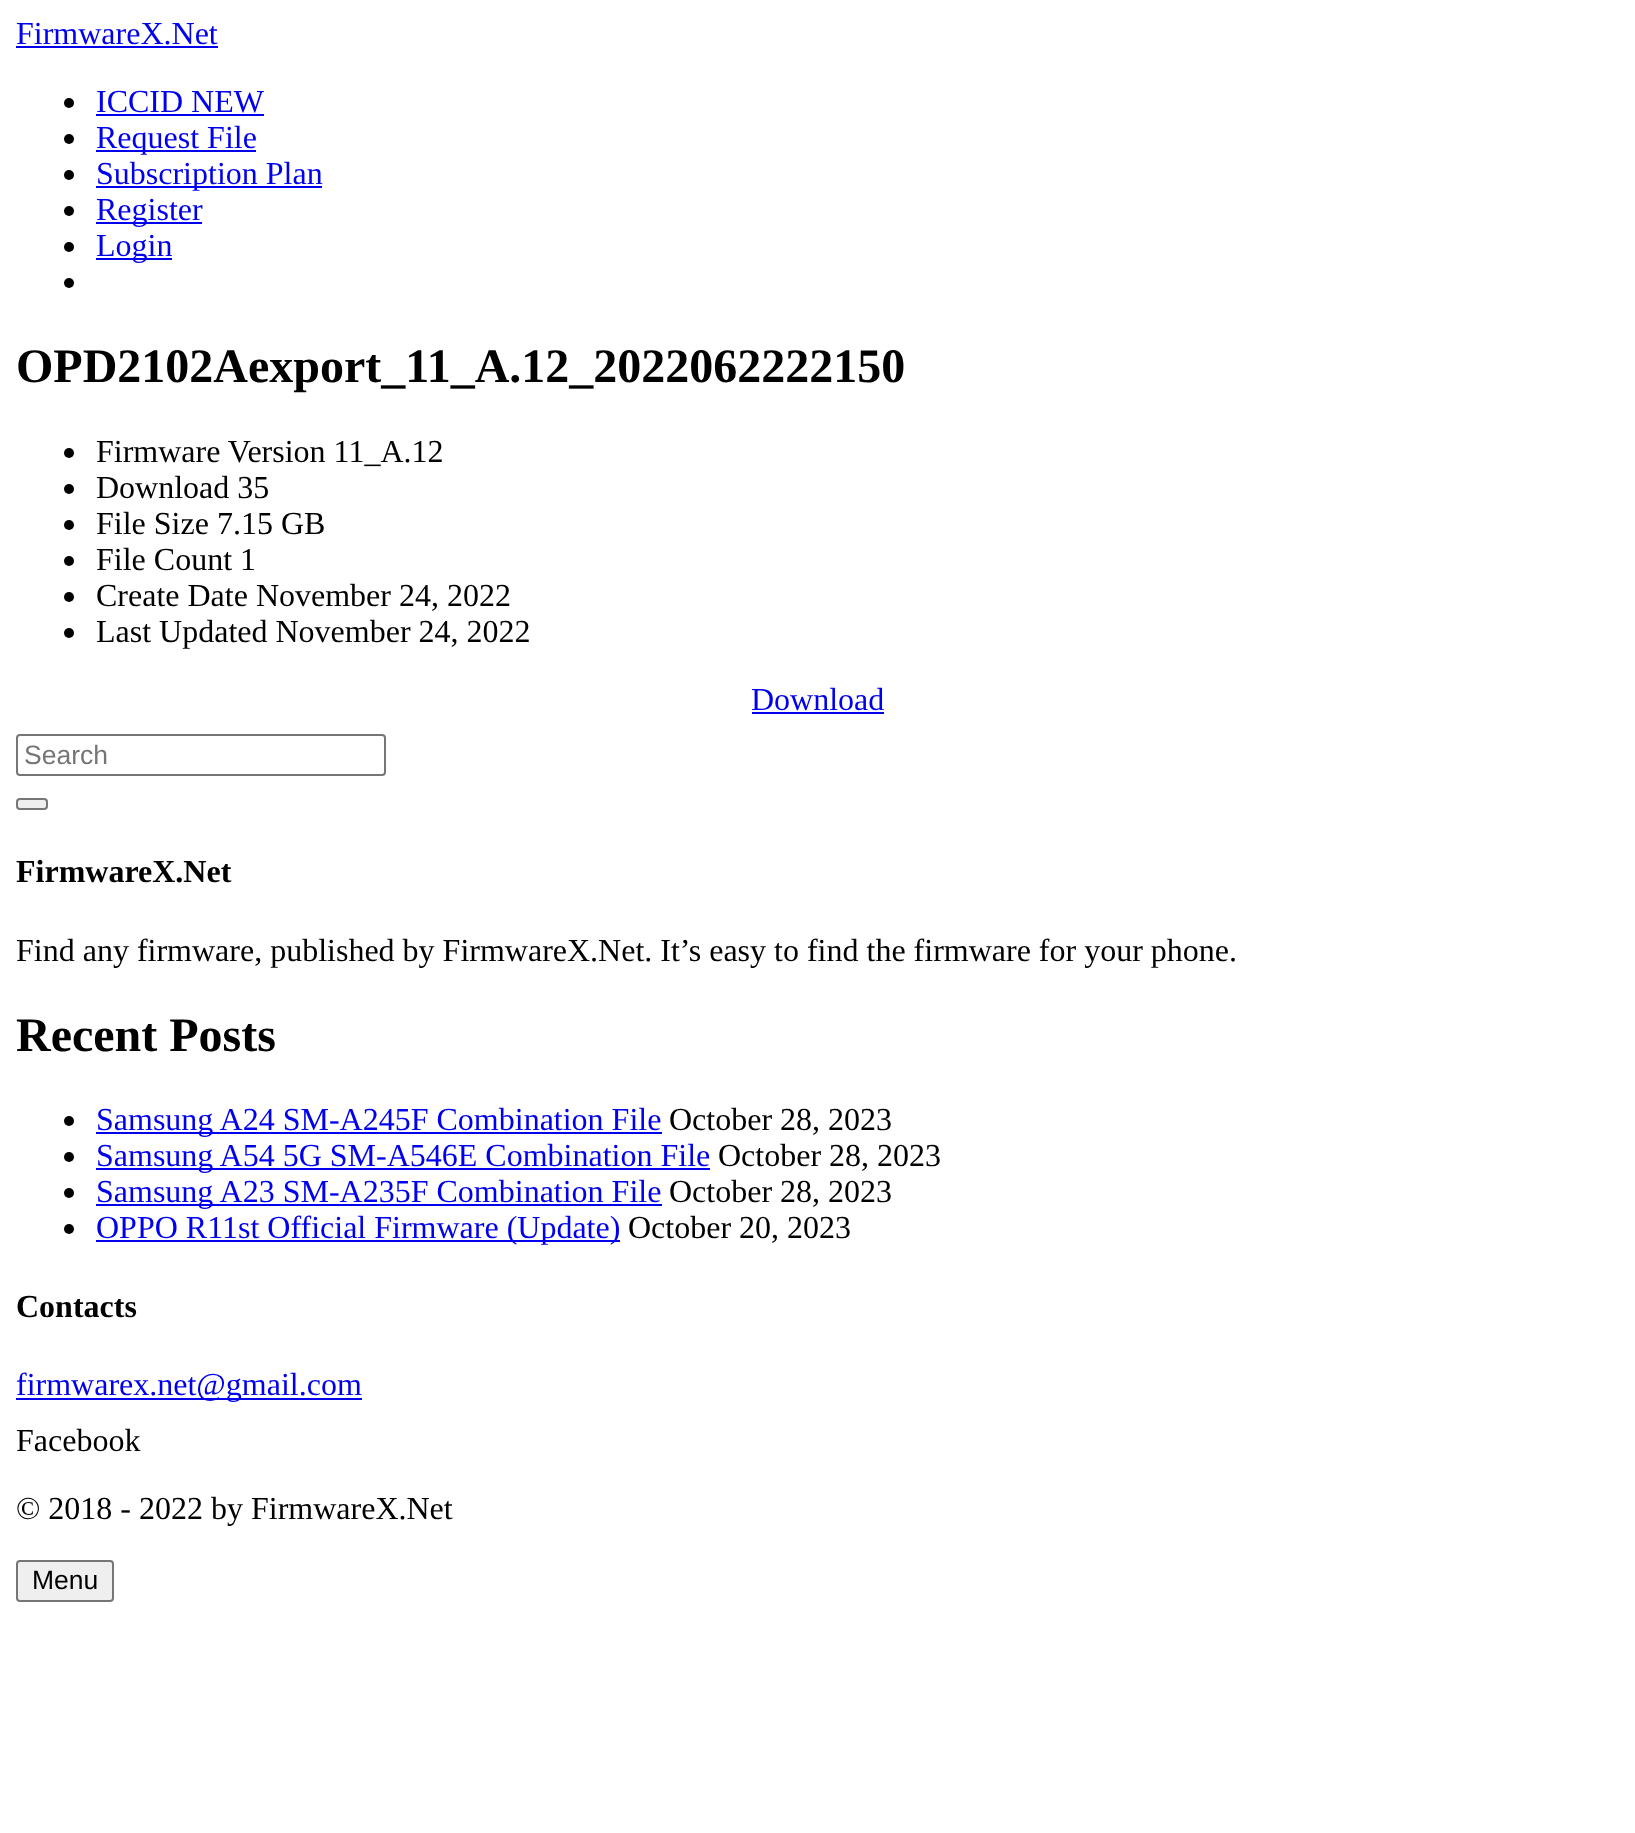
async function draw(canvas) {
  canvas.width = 1635
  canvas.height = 1833
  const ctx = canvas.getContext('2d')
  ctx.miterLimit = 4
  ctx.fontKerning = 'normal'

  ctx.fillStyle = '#fff'
  ctx.fillRect(0, 0, 1635, 1833)
  ctx.font = '32px Liberation Serif'
  ctx.fillStyle = '#00e'
  ctx.fillText('FirmwareX.Net', 16, 44)
  ctx.fillRect(16, 46, 202, 2)
  ctx.fillStyle = '#000'
  ctx.beginPath()
  ctx.arc(69, 103, 5, 0, 2 * Math.PI)
  ctx.fill()
  ctx.fillStyle = '#00e'
  ctx.fillText('ICCID NEW', 96, 112)
  ctx.fillRect(96, 114, 168, 2)
  ctx.fillStyle = '#000'
  ctx.beginPath()
  ctx.arc(69, 139, 5, 0, 2 * Math.PI)
  ctx.fill()
  ctx.fillStyle = '#00e'
  ctx.fillRect(96, 150, 160, 2)
  ctx.fillText('Request File', 96, 148)
  ctx.fillStyle = '#000'
  ctx.beginPath()
  ctx.arc(69, 175, 5, 0, 2 * Math.PI)
  ctx.fill()
  ctx.fillStyle = '#00e'
  ctx.fillRect(96, 186, 226, 2)
  ctx.fillText('Subscription Plan', 96, 184)
  ctx.fillStyle = '#000'
  ctx.beginPath()
  ctx.arc(69, 211, 5, 0, 2 * Math.PI)
  ctx.fill()
  ctx.fillStyle = '#00e'
  ctx.fillRect(96, 222, 106, 2)
  ctx.fillText('Register', 96, 220)
  ctx.fillStyle = '#000'
  ctx.beginPath()
  ctx.arc(69, 247, 5, 0, 2 * Math.PI)
  ctx.fill()
  ctx.fillStyle = '#00e'
  ctx.fillRect(96, 258, 76, 2)
  ctx.fillText('Login', 96, 256)
  ctx.fillStyle = '#000'
  ctx.beginPath()
  ctx.arc(69, 283, 5, 0, 2 * Math.PI)
  ctx.fill()
  ctx.font = 'bold 48px Liberation Serif'
  ctx.fillText('OPD2102Aexport_11_A.12_2022062222150', 16, 382)
  ctx.beginPath()
  ctx.arc(69, 453, 5, 0, 2 * Math.PI)
  ctx.fill()
  ctx.font = '32px Liberation Serif'
  ctx.fillText('Firmware Version 11_A.12', 96, 462)
  ctx.beginPath()
  ctx.arc(69, 489, 5, 0, 2 * Math.PI)
  ctx.fill()
  ctx.fillText('Download 35', 96, 498)
  ctx.beginPath()
  ctx.arc(69, 525, 5, 0, 2 * Math.PI)
  ctx.fill()
  ctx.fillText('File Size 7.15 GB', 96, 534)
  ctx.beginPath()
  ctx.arc(69, 561, 5, 0, 2 * Math.PI)
  ctx.fill()
  ctx.fillText('File Count 1', 96, 570)
  ctx.beginPath()
  ctx.arc(69, 597, 5, 0, 2 * Math.PI)
  ctx.fill()
  ctx.fillText('Create Date November 24, 2022', 96, 606)
  ctx.beginPath()
  ctx.arc(69, 633, 5, 0, 2 * Math.PI)
  ctx.fill()
  ctx.fillText('Last Updated November 24, 2022', 96, 642)
  ctx.fillStyle = '#00e'
  ctx.fillText('Download', 751, 710)
  ctx.fillRect(752, 712, 132, 2)
  ctx.beginPath()
  ctx.roundRect(17, 735, 368, 40, 3)
  ctx.strokeStyle = '#767676'
  ctx.lineWidth = 2
  ctx.stroke()
  ctx.font = '26.5px Liberation Sans'
  ctx.fillStyle = '#757575'
  ctx.fillText('Search', 24, 764)
  ctx.fillStyle = '#efefef'
  ctx.beginPath()
  ctx.roundRect(17, 799, 30, 10, 3)
  ctx.fill()
  ctx.stroke()
  ctx.font = 'bold 32px Liberation Serif'
  ctx.fillStyle = '#000'
  ctx.fillText('FirmwareX.Net', 16, 882)
  ctx.font = '32px Liberation Serif'
  ctx.fillText('Find any firmware, published by FirmwareX.Net. It’s easy to find the firmware for your phone.', 16, 961)
  ctx.font = 'bold 48px Liberation Serif'
  ctx.fillText('Recent Posts', 16, 1051)
  ctx.beginPath()
  ctx.arc(69, 1121, 5, 0, 2 * Math.PI)
  ctx.fill()
  ctx.fillStyle = '#00e'
  ctx.fillRect(96, 1132, 566, 2)
  ctx.font = '32px Liberation Serif'
  ctx.fillText('Samsung A24 SM-A245F Combination File', 96, 1130)
  ctx.fillStyle = '#000'
  ctx.fillText('October 28, 2023', 669, 1130)
  ctx.beginPath()
  ctx.arc(69, 1157, 5, 0, 2 * Math.PI)
  ctx.fill()
  ctx.fillStyle = '#00e'
  ctx.fillRect(96, 1168, 614, 2)
  ctx.fillText('Samsung A54 5G SM-A546E Combination File', 96, 1166)
  ctx.fillStyle = '#000'
  ctx.fillText('October 28, 2023', 718, 1166)
  ctx.beginPath()
  ctx.arc(69, 1193, 5, 0, 2 * Math.PI)
  ctx.fill()
  ctx.fillStyle = '#00e'
  ctx.fillRect(96, 1204, 566, 2)
  ctx.fillText('Samsung A23 SM-A235F Combination File', 96, 1202)
  ctx.fillStyle = '#000'
  ctx.fillText('October 28, 2023', 669, 1202)
  ctx.beginPath()
  ctx.arc(69, 1229, 5, 0, 2 * Math.PI)
  ctx.fill()
  ctx.fillStyle = '#00e'
  ctx.fillRect(96, 1240, 524, 2)
  ctx.fillText('OPPO R11st Official Firmware (Update)', 96, 1238)
  ctx.fillStyle = '#000'
  ctx.fillText('October 20, 2023', 628, 1238)
  ctx.font = 'bold 32px Liberation Serif'
  ctx.fillText('Contacts', 16, 1317)
  ctx.fillStyle = '#00e'
  ctx.fillRect(16, 1398, 346, 2)
  ctx.font = '32px Liberation Serif'
  ctx.fillText('firmwarex.net@gmail.com', 16, 1395)
  ctx.fillStyle = '#000'
  ctx.fillText('Facebook', 16, 1451)
  ctx.fillText('© 2018 - 2022 by FirmwareX.Net', 16, 1519)
  ctx.fillStyle = '#efefef'
  ctx.beginPath()
  ctx.roundRect(17, 1561, 96, 40, 3)
  ctx.fill()
  ctx.stroke()
  ctx.font = '26.5px Liberation Sans'
  ctx.fillStyle = '#000'
  ctx.fillText('Menu', 32, 1589)
}

draw(document.querySelector('canvas'))
